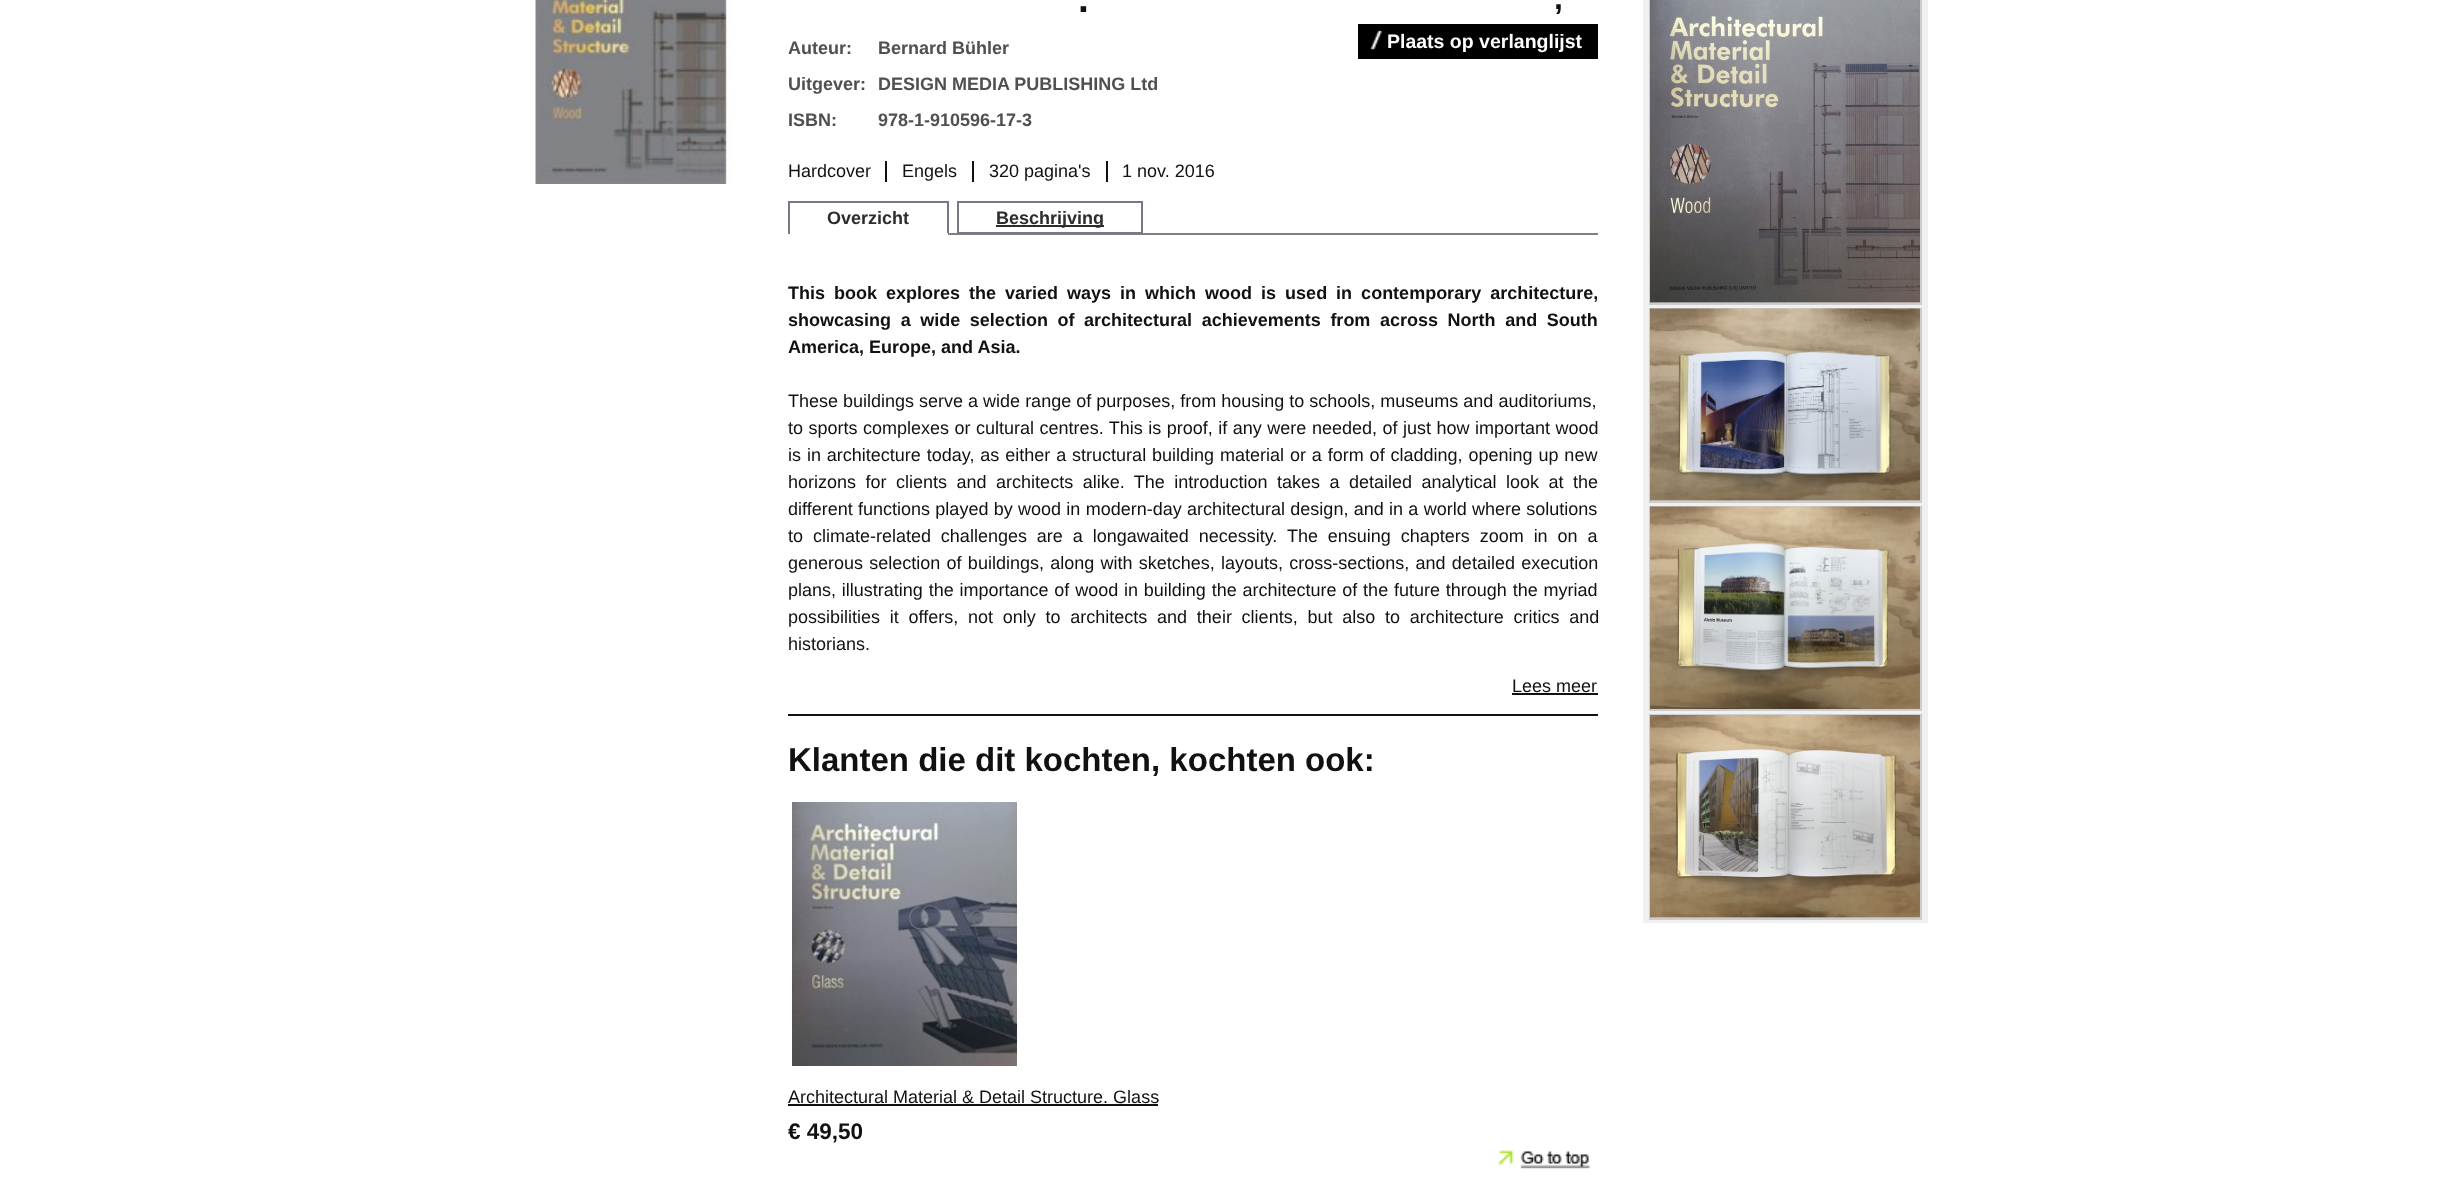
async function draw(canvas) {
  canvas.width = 2445
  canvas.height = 1185
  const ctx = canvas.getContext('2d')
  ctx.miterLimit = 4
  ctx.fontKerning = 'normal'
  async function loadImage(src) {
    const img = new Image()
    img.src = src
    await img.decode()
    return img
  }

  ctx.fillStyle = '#fff'
  ctx.fillRect(0, 0, 2445, 1185)
  ctx.drawImage(await loadImage('image0.png'), 535, 0, 197, 184)
  ctx.font = 'bold 39px Liberation Sans'
  ctx.fillStyle = '#111'
  ctx.fillText('.', 1078, 12)
  ctx.font = 'bold 18px Liberation Sans'
  ctx.fillStyle = '#505050'
  ctx.fillText('Auteur:', 788, 54)
  ctx.fillText('Bernard Bühler', 878, 54)
  ctx.fillText('Uitgever:', 788, 90)
  ctx.fillText('DESIGN MEDIA PUBLISHING Ltd', 878, 90)
  ctx.fillText('ISBN:', 788, 126)
  ctx.fillText('978-1-910596-17-3', 878, 126)
  ctx.fillStyle = '#111'
  ctx.fillRect(885, 161, 2, 21)
  ctx.font = '18px Liberation Sans'
  ctx.fillText('Hardcover', 788, 177)
  ctx.fillRect(972, 161, 2, 21)
  ctx.fillText('Engels', 902, 177)
  ctx.fillRect(1106, 161, 2, 21)
  ctx.fillText('320 pagina\'s', 989, 177)
  ctx.fillText('1 nov. 2016', 1122, 177)
  ctx.font = 'bold 32px Liberation Sans'
  ctx.fillText(',', 1554, 9)
  ctx.fillStyle = '#000'
  ctx.fillRect(1358, 24, 240, 35)
  ctx.drawImage(await loadImage('image1.png'), 1370, 30, 12, 20)
  ctx.font = 'bold 19.5px Liberation Sans'
  ctx.fillStyle = '#fff'
  ctx.fillText('Plaats op verlanglijst', 1387, 48)
  ctx.font = 'bold 18px Liberation Sans'
  ctx.fillStyle = '#2d2b2b'
  ctx.fillText('Overzicht', 827, 224)
  ctx.fillStyle = '#778'
  ctx.fillRect(788, 201, 160, 2)
  ctx.fillStyle = '#808080'
  ctx.fillRect(948, 233, 650, 2)
  ctx.fillStyle = '#778'
  ctx.fillRect(947, 201, 2, 33)
  ctx.fillStyle = '#fff'
  ctx.fillRect(947, 233, 1, 1)
  ctx.fillStyle = '#778'
  ctx.fillRect(788, 201, 2, 33)
  ctx.strokeStyle = '#778'
  ctx.lineWidth = 2
  ctx.strokeRect(958, 202, 184, 31)
  ctx.fillStyle = '#2d2b2b'
  ctx.fillRect(996, 225, 108, 2)
  ctx.fillText('Beschrijving', 996, 224)
  ctx.wordSpacing = '4px'
  ctx.fillStyle = '#111'
  ctx.fillText('This book explores the varied ways in which wood is used in contemporary architecture,', 788, 299)
  ctx.wordSpacing = '4.6px'
  ctx.fillText('showcasing a wide selection of architectural achievements from across North and South', 788, 326)
  ctx.wordSpacing = '0px'
  ctx.fillText('America, Europe, and Asia.', 788, 353)
  ctx.font = '18px Liberation Sans'
  ctx.fillText('These buildings serve a wide range of purposes, from housing to schools, museums and auditoriums,', 788, 407)
  ctx.wordSpacing = '0.5px'
  ctx.fillText('to sports complexes or cultural centres. This is proof, if any were needed, of just how important wood', 788, 434)
  ctx.wordSpacing = '0.9px'
  ctx.fillText('is in architecture today, as either a structural building material or a form of cladding, opening up new', 788, 461)
  ctx.wordSpacing = '4.5px'
  ctx.fillText('horizons for clients and architects alike. The introduction takes a detailed analytical look at the', 788, 488)
  ctx.wordSpacing = '0.3px'
  ctx.fillText('different functions played by wood in modern-day architectural design, and in a world where solutions', 788, 515)
  ctx.wordSpacing = '4.9px'
  ctx.fillText('to climate-related challenges are a longawaited necessity. The ensuing chapters zoom in on a', 788, 542)
  ctx.wordSpacing = '1.25px'
  ctx.fillText('generous selection of buildings, along with sketches, layouts, cross-sections, and detailed execution', 788, 569)
  ctx.wordSpacing = '0.8px'
  ctx.fillText('plans, illustrating the importance of wood in building the architecture of the future through the myriad', 788, 596)
  ctx.wordSpacing = '4.75px'
  ctx.fillText('possibilities it offers, not only to architects and their clients, but also to architecture critics and', 788, 623)
  ctx.wordSpacing = '0px'
  ctx.fillText('historians.', 788, 650)
  ctx.fillText('Lees meer', 1512, 692)
  ctx.fillRect(1512, 693, 86, 2)
  ctx.fillRect(788, 714, 810, 2)
  ctx.font = 'bold 33px Liberation Sans'
  ctx.fillText('Klanten die dit kochten, kochten ook:', 788, 771)
  ctx.drawImage(await loadImage('image2.png'), 792, 802, 225, 264)
  ctx.font = '18px Liberation Sans'
  ctx.fillText('Architectural Material & Detail Structure. Glass', 788, 1103)
  ctx.fillRect(788, 1104, 370, 2)
  ctx.font = 'bold 22.5px Liberation Sans'
  ctx.fillText('€ 49,50', 788, 1139)
  ctx.drawImage(await loadImage('image3.png'), 1498, 1150, 93, 19)
  ctx.fillStyle = '#f0f0f0'
  ctx.fillRect(1643, 0, 285, 923)
  ctx.strokeStyle = '#cdcdcd'
  ctx.strokeRect(1650, -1, 271, 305)
  ctx.drawImage(await loadImage('image4.png'), 1650, 0, 270, 303)
  ctx.strokeRect(1650, 309, 271, 193)
  ctx.drawImage(await loadImage('image5.png'), 1650, 308, 270, 193)
  ctx.strokeRect(1650, 507, 271, 203)
  ctx.drawImage(await loadImage('image6.png'), 1650, 506, 270, 203)
  ctx.strokeRect(1650, 715, 271, 204)
  ctx.drawImage(await loadImage('image7.png'), 1650, 715, 270, 203)
}

draw(document.querySelector('canvas'))
